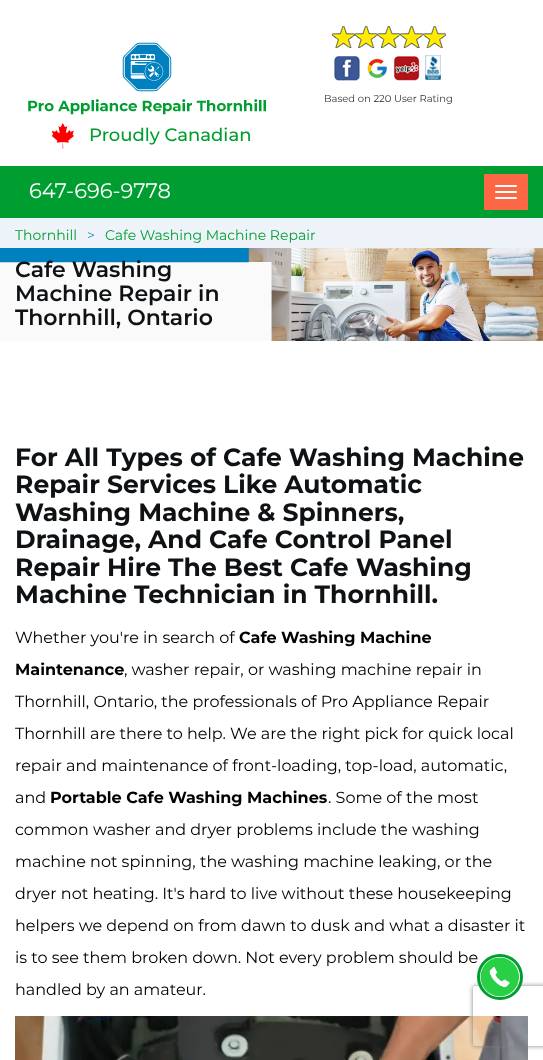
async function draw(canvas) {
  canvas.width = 543
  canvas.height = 1060
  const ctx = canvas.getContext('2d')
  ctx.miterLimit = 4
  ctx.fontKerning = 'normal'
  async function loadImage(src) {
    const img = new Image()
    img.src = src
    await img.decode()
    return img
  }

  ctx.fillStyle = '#fff'
  ctx.fillRect(0, 0, 543, 1060)
  ctx.drawImage(await loadImage('image0.png'), 28, 42, 238, 73)
  ctx.drawImage(await loadImage('image1.png'), 332, 26, 114, 55)
  ctx.font = '10px Montserrat'
  ctx.fillStyle = '#333'
  ctx.fillText('Based on 220 User Rating', 324, 102)
  ctx.drawImage(await loadImage('image2.png'), 51, 123, 23, 26)
  ctx.font = '500 18px Montserrat'
  ctx.fillStyle = '#009e30'
  ctx.fillText('Proudly Canadian', 89, 141)
  ctx.font = '16px Montserrat'
  ctx.fillStyle = '#000'
  ctx.fillText('is to see them broken down. Not every problem should be', 15, 963)
  ctx.drawImage(await loadImage('image5.png'), 15, 1016, 513, 44)
  ctx.save()
  ctx.beginPath()
  ctx.moveTo(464, 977)
  ctx.lineTo(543, 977)
  ctx.lineTo(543, 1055)
  ctx.lineTo(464, 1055)
  ctx.closePath()
  ctx.moveTo(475, 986)
  ctx.lineTo(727, 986)
  ctx.bezierCurveTo(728, 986, 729, 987, 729, 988)
  ctx.lineTo(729, 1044)
  ctx.bezierCurveTo(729, 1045, 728, 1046, 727, 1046)
  ctx.lineTo(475, 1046)
  ctx.bezierCurveTo(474, 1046, 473, 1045, 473, 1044)
  ctx.lineTo(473, 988)
  ctx.bezierCurveTo(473, 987, 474, 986, 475, 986)
  ctx.closePath()
  ctx.clip('evenodd')
  ctx.fillStyle = '#808080'
  ctx.filter = 'blur(2.5px)'
  ctx.beginPath()
  ctx.roundRect(473, 986, 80, 60, 2)
  ctx.fill()
  ctx.filter = 'none'
  ctx.restore()
  ctx.beginPath()
  ctx.arc(500, 977, 21.5, 0, 2 * Math.PI)
  ctx.strokeStyle = '#009e30'
  ctx.lineWidth = 3
  ctx.stroke()
  ctx.drawImage(await loadImage('image3.png'), 480, 957, 40, 40)
  ctx.fillStyle = '#009e30'
  ctx.fillRect(0, 166, 543, 52)
  ctx.font = '21px Montserrat'
  ctx.fillStyle = '#fff'
  ctx.fillText('647-696-9778', 29, 198)
  ctx.fillStyle = '#fc6746'
  ctx.fillRect(484, 174, 44, 36)
  ctx.fillStyle = '#fff'
  ctx.beginPath()
  ctx.roundRect(495, 185, 22, 2, 1)
  ctx.fill()
  ctx.beginPath()
  ctx.roundRect(495, 191, 22, 2, 1)
  ctx.fill()
  ctx.beginPath()
  ctx.roundRect(495, 197, 22, 2, 1)
  ctx.fill()
  ctx.fillStyle = '#eef3f9'
  ctx.fillRect(0, 218, 543, 30)
  ctx.font = '14px Montserrat'
  ctx.fillStyle = '#009e30'
  ctx.fillText('Thornhill', 15, 240)
  ctx.fillStyle = '#0080be'
  ctx.fillText('>', 87, 240)
  ctx.fillStyle = '#009e30'
  ctx.fillText('Cafe Washing Machine Repair', 105, 240)
  ctx.drawImage(await loadImage('image4.png'), 0, 248, 543, 93)
  ctx.font = '600 22px Montserrat'
  ctx.fillStyle = '#0f1214'
  ctx.fillText('Cafe Washing', 15, 277)
  ctx.fillText('Machine Repair in', 15, 301)
  ctx.fillText('Thornhill, Ontario', 15, 325)
  ctx.font = 'bold 25px Montserrat'
  ctx.fillText('For All Types of Cafe Washing Machine', 15, 466)
  ctx.fillText('Repair Services Like Automatic', 15, 493)
  ctx.fillText('Washing Machine & Spinners,', 15, 521)
  ctx.fillText('Drainage, And Cafe Control Panel', 15, 548)
  ctx.fillText('Repair Hire The Best Cafe Washing', 15, 576)
  ctx.fillText('Machine Technician in Thornhill.', 15, 603)
  ctx.font = '16px Montserrat'
  ctx.fillStyle = '#000'
  ctx.fillText('Whether you\'re in search of', 15, 643)
  ctx.font = 'bold 16px Montserrat'
  ctx.fillText('Cafe Washing Machine', 239, 643)
  ctx.fillText('Maintenance', 15, 675)
  ctx.font = '16px Montserrat'
  ctx.fillText(', washer repair, or washing machine repair in', 124, 675)
  ctx.fillText('Thornhill, Ontario, the professionals of Pro Appliance Repair', 15, 707)
  ctx.fillText('Thornhill are there to help. We are the right pick for quick local', 15, 739)
  ctx.fillText('repair and maintenance of front-loading, top-load, automatic,', 15, 771)
  ctx.fillText('and', 15, 803)
  ctx.font = 'bold 16px Montserrat'
  ctx.fillText('Portable Cafe Washing Machines', 50, 803)
  ctx.font = '16px Montserrat'
  ctx.fillText('. Some of the most', 328, 803)
  ctx.fillText('common washer and dryer problems include the washing', 15, 835)
  ctx.fillText('machine not spinning, the washing machine leaking, or the', 15, 867)
  ctx.fillText('dryer not heating. It\'s hard to live without these housekeeping', 15, 899)
  ctx.fillText('helpers we depend on from dawn to dusk and what a disaster it', 15, 931)
  ctx.fillText('handled by an amateur.', 15, 995)
}

draw(document.querySelector('canvas'))
